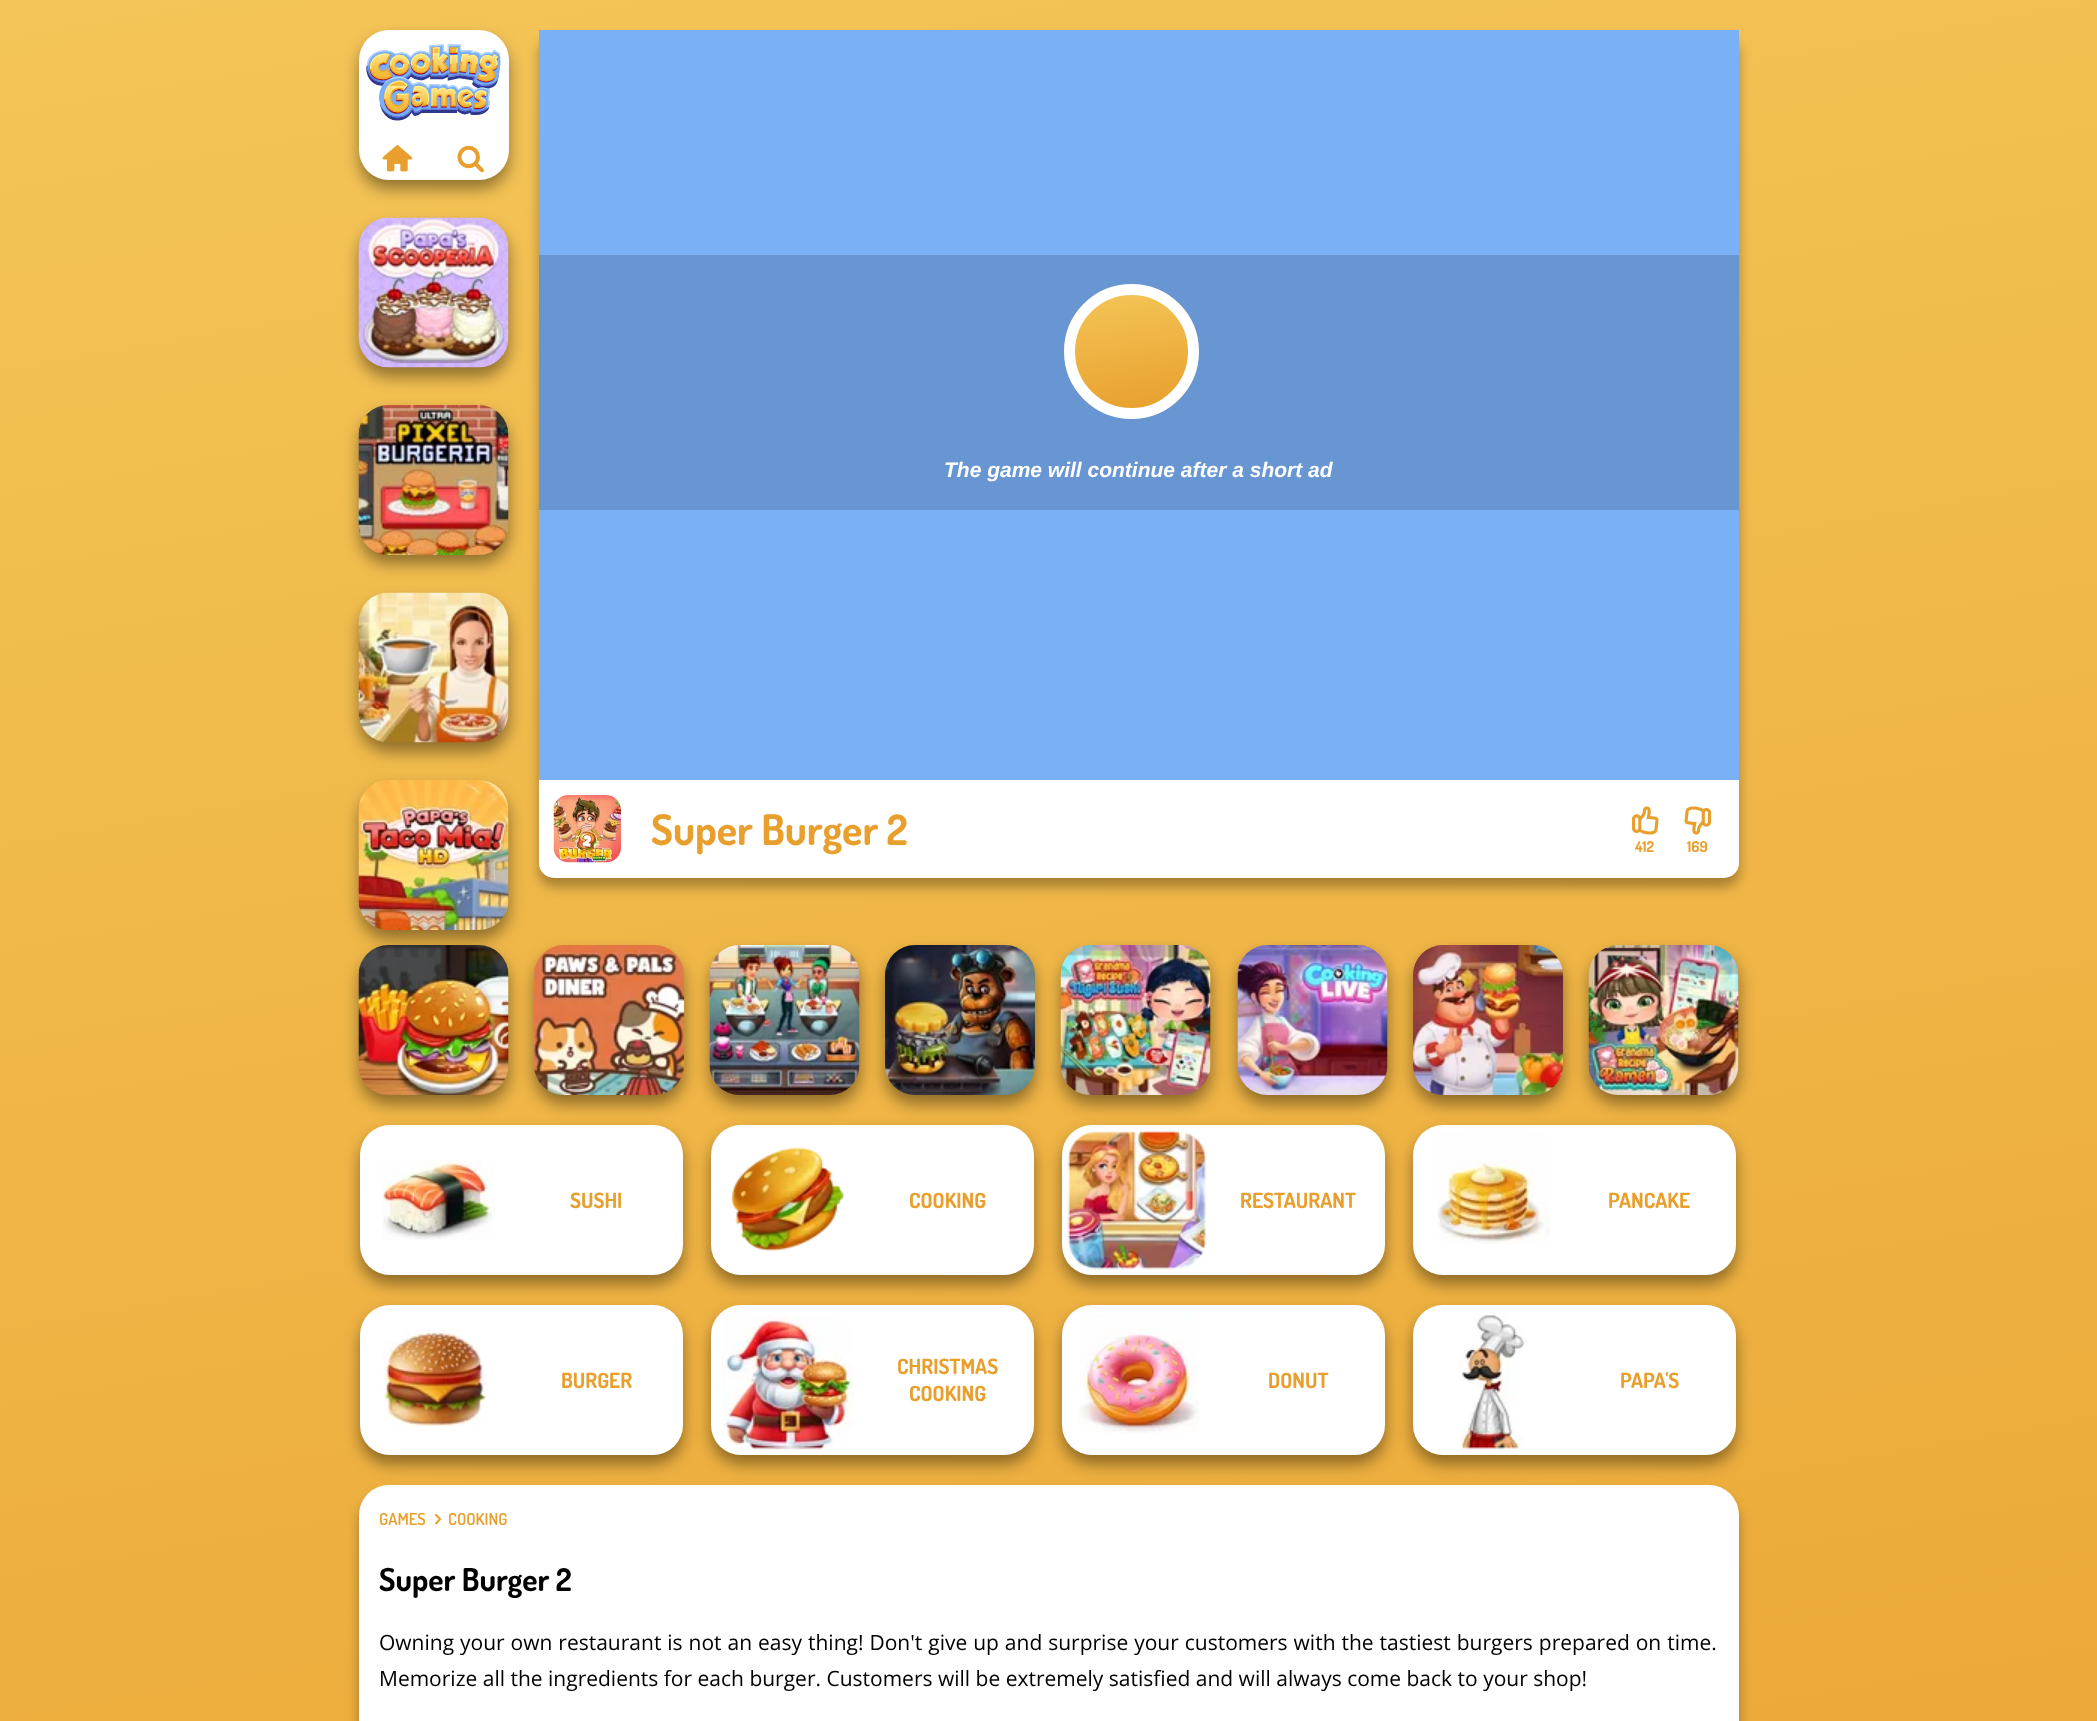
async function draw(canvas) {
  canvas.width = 2097
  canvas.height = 1721
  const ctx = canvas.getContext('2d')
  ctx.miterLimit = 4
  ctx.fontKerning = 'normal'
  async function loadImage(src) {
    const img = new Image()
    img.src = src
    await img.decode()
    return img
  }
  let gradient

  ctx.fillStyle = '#fff'
  ctx.fillRect(0, 0, 2097, 1721)
  gradient = ctx.createLinearGradient(802, -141, 1295, 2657)
  gradient.addColorStop(0, '#f4c558')
  gradient.addColorStop(1, '#e89f2d')
  ctx.fillStyle = gradient
  ctx.fillRect(0, 0, 2097, 1721)
  ctx.fillStyle = '#00000066'
  ctx.filter = 'blur(7.5px)'
  ctx.beginPath()
  ctx.roundRect(359, 39, 150, 150, 30)
  ctx.fill()
  ctx.filter = 'none'
  ctx.fillStyle = '#fff'
  ctx.beginPath()
  ctx.roundRect(359, 30, 150, 150, 30)
  ctx.fill()
  ctx.drawImage(await loadImage('image0.png'), 366, 38, 135, 83)
  ctx.drawImage(await loadImage('image1.png'), 382, 144, 31, 28)
  ctx.drawImage(await loadImage('image2.png'), 457, 145, 27, 28)
  ctx.fillStyle = '#00000066'
  ctx.filter = 'blur(7.5px)'
  ctx.beginPath()
  ctx.roundRect(359, 227, 150, 150, 30)
  ctx.fill()
  ctx.filter = 'none'
  ctx.drawImage(await loadImage('image3.png'), 358, 217, 151, 151)
  ctx.filter = 'blur(7.5px)'
  ctx.beginPath()
  ctx.roundRect(359, 414, 150, 150, 30)
  ctx.fill()
  ctx.filter = 'none'
  ctx.drawImage(await loadImage('image4.png'), 358, 405, 151, 150)
  ctx.filter = 'blur(7.5px)'
  ctx.beginPath()
  ctx.roundRect(359, 602, 150, 150, 30)
  ctx.fill()
  ctx.filter = 'none'
  ctx.drawImage(await loadImage('image5.png'), 358, 592, 151, 151)
  ctx.filter = 'blur(7.5px)'
  ctx.beginPath()
  ctx.roundRect(359, 789, 150, 150, 30)
  ctx.fill()
  ctx.filter = 'none'
  ctx.drawImage(await loadImage('image6.png'), 358, 780, 151, 150)
  ctx.fillStyle = '#0000004d'
  ctx.filter = 'blur(6px)'
  ctx.beginPath()
  ctx.roundRect(539, 39, 1200, 848, 15)
  ctx.fill()
  ctx.filter = 'none'
  ctx.fillStyle = '#7ab0f6'
  ctx.fillRect(539, 30, 1200, 750)
  ctx.fillStyle = '#6896d2'
  ctx.fillRect(539, 255, 1200, 255)
  ctx.save()
  ctx.beginPath()
  ctx.roundRect(1064, 284, 135, 135, 67.5)
  ctx.clip()
  gradient = ctx.createLinearGradient(1120, 286, 1142, 416)
  gradient.addColorStop(0, '#f4c558')
  gradient.addColorStop(1, '#e89f2d')
  ctx.fillStyle = gradient
  ctx.fillRect(1074, 294, 114, 114)
  ctx.restore()
  ctx.beginPath()
  ctx.arc(1131.5, 351.5, 62, 0, 2 * Math.PI)
  ctx.strokeStyle = '#fff'
  ctx.lineWidth = 11
  ctx.stroke()
  ctx.font = 'italic bold 21px Liberation Sans'
  ctx.fillStyle = '#fff'
  ctx.fillText('The game will continue after a short ad', 944, 477)
  ctx.beginPath()
  ctx.roundRect(539, 780, 1200, 98, [0, 0, 15, 15])
  ctx.fill()
  ctx.drawImage(await loadImage('image7.png'), 553, 795, 68, 68)
  ctx.font = 'bold 42px Dosis'
  ctx.fillStyle = '#e89f2d'
  ctx.fillText('Super Burger 2', 651, 845)
  ctx.drawImage(await loadImage('image8.png'), 1632, 806, 27, 29)
  ctx.font = 'bold 15px Dosis'
  ctx.fillText('412', 1635, 852)
  ctx.drawImage(await loadImage('image9.png'), 1684, 806, 28, 29)
  ctx.fillText('169', 1687, 852)
  ctx.fillStyle = '#00000066'
  ctx.filter = 'blur(7.5px)'
  ctx.beginPath()
  ctx.roundRect(359, 954, 150, 150, 30)
  ctx.fill()
  ctx.filter = 'none'
  ctx.drawImage(await loadImage('image10.png'), 358, 945, 151, 150)
  ctx.filter = 'blur(7.5px)'
  ctx.beginPath()
  ctx.roundRect(534, 954, 150, 150, 30)
  ctx.fill()
  ctx.filter = 'none'
  ctx.drawImage(await loadImage('image11.png'), 534, 945, 150, 150)
  ctx.filter = 'blur(7.5px)'
  ctx.beginPath()
  ctx.roundRect(710, 954, 150, 150, 30)
  ctx.fill()
  ctx.filter = 'none'
  ctx.drawImage(await loadImage('image12.png'), 709, 945, 151, 150)
  ctx.filter = 'blur(7.5px)'
  ctx.beginPath()
  ctx.roundRect(885, 954, 150, 150, 30)
  ctx.fill()
  ctx.filter = 'none'
  ctx.drawImage(await loadImage('image13.png'), 885, 945, 150, 150)
  ctx.filter = 'blur(7.5px)'
  ctx.beginPath()
  ctx.roundRect(1061, 954, 150, 150, 30)
  ctx.fill()
  ctx.filter = 'none'
  ctx.drawImage(await loadImage('image14.png'), 1060, 945, 151, 150)
  ctx.filter = 'blur(7.5px)'
  ctx.beginPath()
  ctx.roundRect(1238, 954, 150, 150, 30)
  ctx.fill()
  ctx.filter = 'none'
  ctx.drawImage(await loadImage('image15.png'), 1237, 945, 151, 150)
  ctx.filter = 'blur(7.5px)'
  ctx.beginPath()
  ctx.roundRect(1413, 954, 150, 150, 30)
  ctx.fill()
  ctx.filter = 'none'
  ctx.drawImage(await loadImage('image16.png'), 1413, 945, 150, 150)
  ctx.filter = 'blur(7.5px)'
  ctx.beginPath()
  ctx.roundRect(1589, 954, 150, 150, 30)
  ctx.fill()
  ctx.filter = 'none'
  ctx.drawImage(await loadImage('image17.png'), 1588, 945, 151, 150)
  ctx.filter = 'blur(7.5px)'
  ctx.beginPath()
  ctx.roundRect(360, 1134, 323, 150, 30)
  ctx.fill()
  ctx.filter = 'none'
  ctx.fillStyle = '#fff'
  ctx.beginPath()
  ctx.roundRect(360, 1125, 323, 150, 30)
  ctx.fill()
  ctx.drawImage(await loadImage('image18.png'), 382, 1160, 113, 80)
  ctx.font = 'bold 21px Dosis'
  ctx.fillStyle = '#e89f2d'
  ctx.fillText('SUSHI', 570, 1208)
  ctx.fillStyle = '#00000066'
  ctx.filter = 'blur(7.5px)'
  ctx.beginPath()
  ctx.roundRect(711, 1134, 323, 150, 30)
  ctx.fill()
  ctx.filter = 'none'
  ctx.fillStyle = '#fff'
  ctx.beginPath()
  ctx.roundRect(711, 1125, 323, 150, 30)
  ctx.fill()
  ctx.drawImage(await loadImage('image19.png'), 731, 1147, 113, 105)
  ctx.fillStyle = '#e89f2d'
  ctx.fillText('COOKING', 909, 1208)
  ctx.fillStyle = '#00000066'
  ctx.filter = 'blur(7.5px)'
  ctx.beginPath()
  ctx.roundRect(1062, 1134, 323, 150, 30)
  ctx.fill()
  ctx.filter = 'none'
  ctx.fillStyle = '#fff'
  ctx.beginPath()
  ctx.roundRect(1062, 1125, 323, 150, 30)
  ctx.fill()
  ctx.drawImage(await loadImage('image20.png'), 1067, 1130, 140, 140)
  ctx.fillStyle = '#e89f2d'
  ctx.fillText('RESTAURANT', 1240, 1208)
  ctx.fillStyle = '#00000066'
  ctx.filter = 'blur(7.5px)'
  ctx.beginPath()
  ctx.roundRect(1413, 1134, 323, 150, 30)
  ctx.fill()
  ctx.filter = 'none'
  ctx.fillStyle = '#fff'
  ctx.beginPath()
  ctx.roundRect(1413, 1125, 323, 150, 30)
  ctx.fill()
  ctx.drawImage(await loadImage('image21.png'), 1437, 1133, 114, 111)
  ctx.fillStyle = '#e89f2d'
  ctx.fillText('PANCAKE', 1608, 1208)
  ctx.fillStyle = '#0000004d'
  ctx.filter = 'blur(6px)'
  ctx.beginPath()
  ctx.roundRect(359, 1494, 1380, 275, 30)
  ctx.fill()
  ctx.filter = 'none'
  ctx.fillStyle = '#fff'
  ctx.beginPath()
  ctx.roundRect(359, 1485, 1380, 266, 30)
  ctx.fill()
  ctx.fillStyle = '#00000066'
  ctx.filter = 'blur(7.5px)'
  ctx.beginPath()
  ctx.roundRect(360, 1314, 323, 150, 30)
  ctx.fill()
  ctx.filter = 'none'
  ctx.fillStyle = '#fff'
  ctx.beginPath()
  ctx.roundRect(360, 1305, 323, 150, 30)
  ctx.fill()
  ctx.drawImage(await loadImage('image22.png'), 382, 1329, 105, 98)
  ctx.fillStyle = '#e89f2d'
  ctx.fillText('BURGER', 561, 1388)
  ctx.fillStyle = '#00000066'
  ctx.filter = 'blur(7.5px)'
  ctx.beginPath()
  ctx.roundRect(711, 1314, 323, 150, 30)
  ctx.fill()
  ctx.filter = 'none'
  ctx.fillStyle = '#fff'
  ctx.beginPath()
  ctx.roundRect(711, 1305, 323, 150, 30)
  ctx.fill()
  ctx.drawImage(await loadImage('image23.png'), 722, 1316, 132, 134)
  ctx.fillStyle = '#e89f2d'
  ctx.fillText('CHRISTMAS', 897, 1374)
  ctx.fillText('COOKING', 909, 1401)
  ctx.fillStyle = '#00000066'
  ctx.filter = 'blur(7.5px)'
  ctx.beginPath()
  ctx.roundRect(1062, 1314, 323, 150, 30)
  ctx.fill()
  ctx.filter = 'none'
  ctx.fillStyle = '#fff'
  ctx.beginPath()
  ctx.roundRect(1062, 1305, 323, 150, 30)
  ctx.fill()
  ctx.drawImage(await loadImage('image24.png'), 1079, 1313, 120, 121)
  ctx.fillStyle = '#e89f2d'
  ctx.fillText('DONUT', 1268, 1388)
  ctx.fillStyle = '#00000066'
  ctx.filter = 'blur(7.5px)'
  ctx.beginPath()
  ctx.roundRect(1413, 1314, 323, 150, 30)
  ctx.fill()
  ctx.filter = 'none'
  ctx.fillStyle = '#fff'
  ctx.beginPath()
  ctx.roundRect(1413, 1305, 323, 150, 30)
  ctx.fill()
  ctx.drawImage(await loadImage('image25.png'), 1460, 1312, 67, 138)
  ctx.fillStyle = '#e89f2d'
  ctx.fillText('PAPA\'S', 1620, 1388)
  ctx.font = '600 16.5px Dosis'
  ctx.fillText('GAMES', 379, 1525)
  ctx.drawImage(await loadImage('image26.png'), 435, 1514, 7, 11)
  ctx.fillText('COOKING', 448, 1525)
  ctx.font = 'bold 31.5px Dosis'
  ctx.fillStyle = '#000'
  ctx.fillText('Super Burger 2', 379, 1591)
  ctx.wordSpacing = '0.5px'
  ctx.font = '21px Open Sans'
  ctx.fillText('Owning your own restaurant is not an easy thing! Don\'t give up and surprise your customers with the tastiest burgers prepared on time.', 379, 1650)
  ctx.wordSpacing = '0px'
  ctx.fillText('Memorize all the ingredients for each burger. Customers will be extremely satisfied and will always come back to your shop!', 379, 1686)
}

draw(document.querySelector('canvas'))
